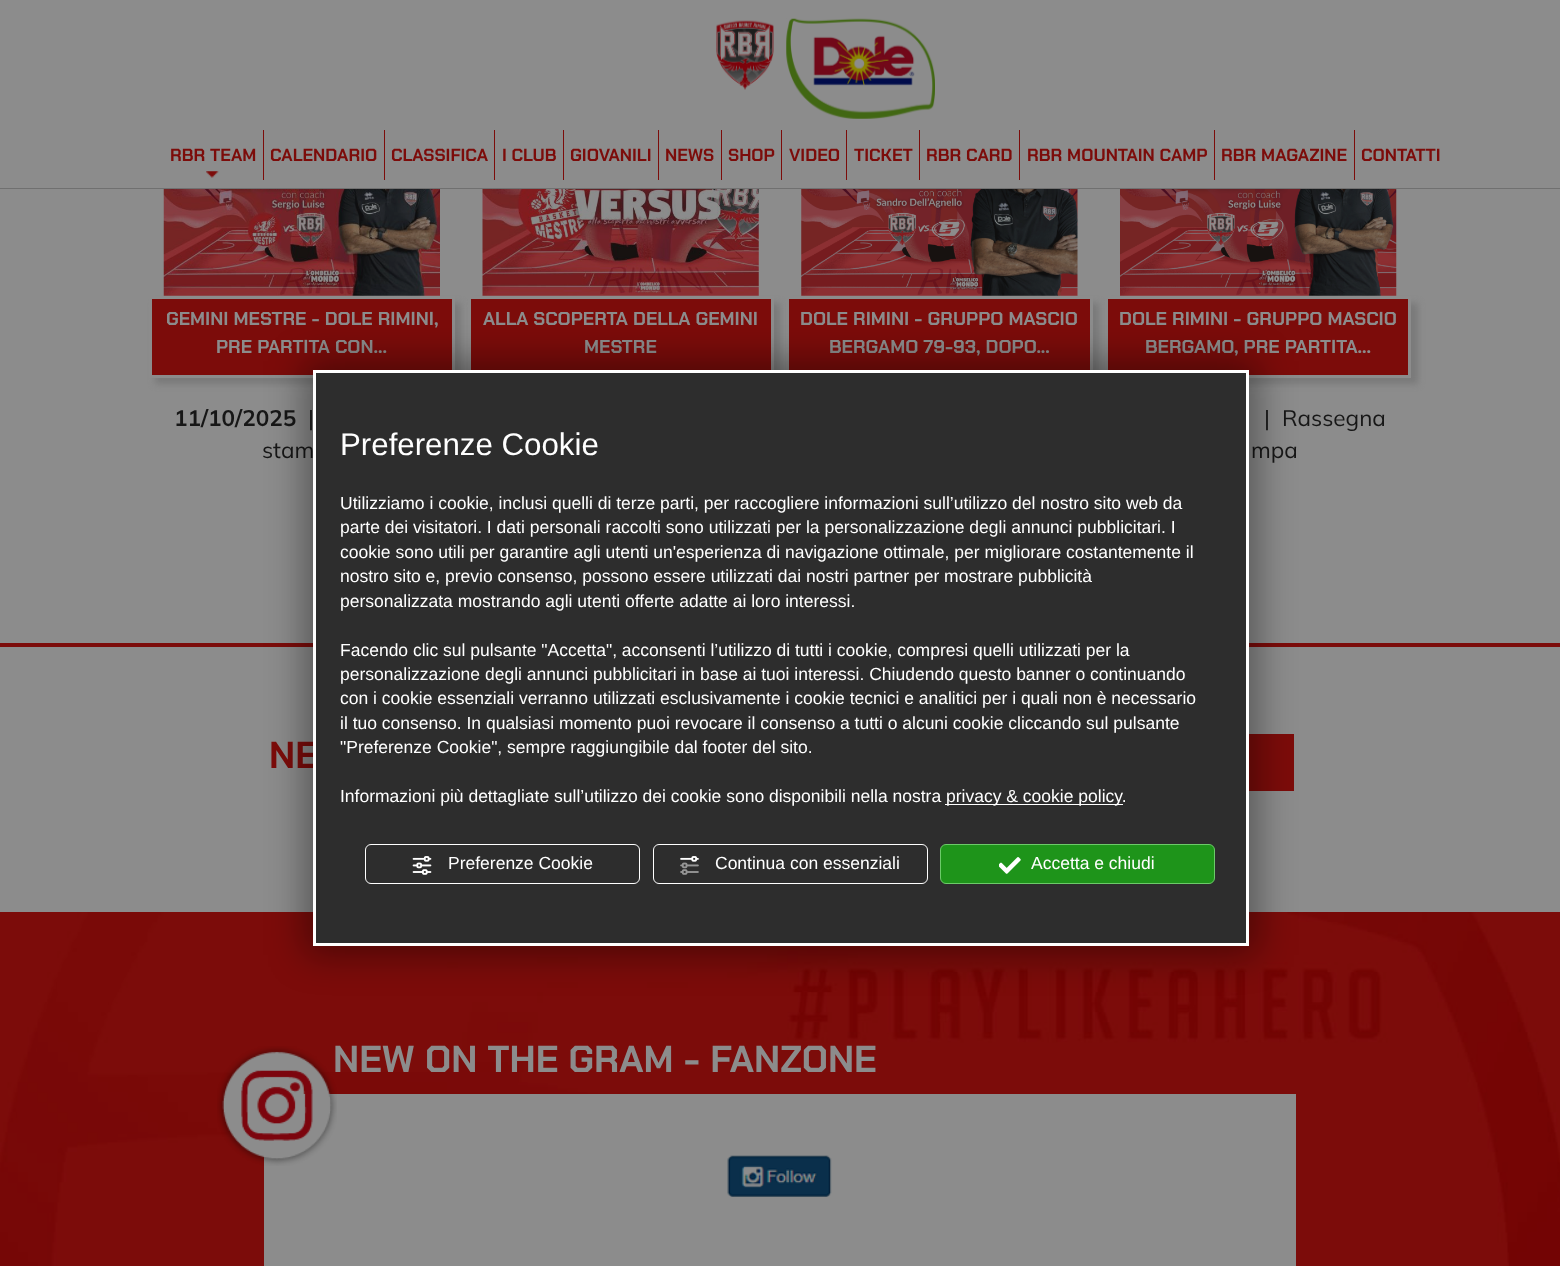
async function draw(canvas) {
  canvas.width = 1560
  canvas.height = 1266
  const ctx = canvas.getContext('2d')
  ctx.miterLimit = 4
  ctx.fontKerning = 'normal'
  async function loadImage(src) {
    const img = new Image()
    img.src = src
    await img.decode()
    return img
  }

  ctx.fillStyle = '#8c8c8c'
  ctx.fillRect(0, 0, 1560, 1266)
  ctx.fillStyle = '#707070'
  ctx.fillRect(0, 188, 1560, 1)
  ctx.drawImage(await loadImage('image0.png'), 716, 20, 58, 70)
  ctx.drawImage(await loadImage('image1.png'), 786, 18, 149, 101)
  ctx.drawImage(await loadImage('image2.png'), 206, 171, 13, 7)
  ctx.font = 'bold 17.5px Chakra Petch'
  ctx.fillStyle = '#7c0c0a'
  ctx.fillText('RBR TEAM', 170, 161)
  ctx.fillRect(263, 130, 1, 50)
  ctx.fillText('CALENDARIO', 270, 161)
  ctx.fillRect(384, 130, 1, 50)
  ctx.fillText('CLASSIFICA', 391, 161)
  ctx.fillRect(494, 130, 1, 50)
  ctx.fillText('I CLUB', 502, 161)
  ctx.fillRect(563, 130, 1, 50)
  ctx.fillText('GIOVANILI', 570, 161)
  ctx.fillRect(658, 130, 1, 50)
  ctx.fillText('NEWS', 665, 161)
  ctx.fillRect(721, 130, 1, 50)
  ctx.fillText('SHOP', 728, 161)
  ctx.fillRect(781, 130, 1, 50)
  ctx.fillText('VIDEO', 789, 161)
  ctx.fillRect(846, 130, 1, 50)
  ctx.fillText('TICKET', 854, 161)
  ctx.fillRect(919, 130, 1, 50)
  ctx.fillText('RBR CARD', 926, 161)
  ctx.fillRect(1019, 130, 1, 50)
  ctx.fillText('RBR MOUNTAIN CAMP', 1027, 161)
  ctx.fillRect(1214, 130, 1, 50)
  ctx.fillText('RBR MAGAZINE', 1221, 161)
  ctx.fillRect(1354, 130, 1, 50)
  ctx.fillText('CONTATTI', 1361, 161)
  ctx.fillStyle = '#7a7a7a'
  ctx.filter = 'blur(3px)'
  ctx.beginPath()
  ctx.rect(155, 303, 306, 81)
  ctx.fill()
  ctx.filter = 'none'
  ctx.drawImage(await loadImage('image3.png'), 163, 189, 277, 107)
  ctx.fillStyle = '#7c0c0a'
  ctx.beginPath()
  ctx.rect(150.5, 297.5, 303, 79)
  ctx.fill()
  ctx.strokeStyle = '#8c8c8c'
  ctx.lineWidth = 3
  ctx.stroke()
  ctx.font = 'bold 18.75px Chakra Petch'
  ctx.fillStyle = '#8c8c8c'
  ctx.fillText('GEMINI MESTRE - DOLE RIMINI,', 166, 325)
  ctx.fillText('PRE PARTITA CON...', 216, 353)
  ctx.font = 'bold 22.5px Mulish'
  ctx.fillStyle = '#171717'
  ctx.fillText('11/10/2025', 174, 426)
  ctx.font = '22.5px Mulish'
  ctx.fillText('|', 308, 426)
  ctx.fillText('stam', 262, 458)
  ctx.fillStyle = '#7a7a7a'
  ctx.filter = 'blur(3px)'
  ctx.beginPath()
  ctx.rect(474, 303, 306, 81)
  ctx.fill()
  ctx.filter = 'none'
  ctx.drawImage(await loadImage('image4.png'), 482, 189, 277, 107)
  ctx.fillStyle = '#7c0c0a'
  ctx.fillRect(471, 299, 300, 71)
  ctx.strokeRect(469.5, 297.5, 303, 79)
  ctx.font = 'bold 18.75px Chakra Petch'
  ctx.fillStyle = '#8c8c8c'
  ctx.fillText('ALLA SCOPERTA DELLA GEMINI', 483, 325)
  ctx.fillText('MESTRE', 584, 353)
  ctx.fillStyle = '#7a7a7a'
  ctx.filter = 'blur(3px)'
  ctx.beginPath()
  ctx.rect(793, 303, 306, 81)
  ctx.fill()
  ctx.filter = 'none'
  ctx.drawImage(await loadImage('image5.png'), 801, 189, 277, 107)
  ctx.fillStyle = '#7c0c0a'
  ctx.fillRect(789, 299, 301, 71)
  ctx.strokeRect(787.5, 297.5, 304, 79)
  ctx.fillStyle = '#8c8c8c'
  ctx.fillText('DOLE RIMINI - GRUPPO MASCIO', 800, 325)
  ctx.fillText('BERGAMO 79-93, DOPO...', 829, 353)
  ctx.fillStyle = '#7a7a7a'
  ctx.filter = 'blur(3px)'
  ctx.beginPath()
  ctx.rect(1111, 303, 307, 81)
  ctx.fill()
  ctx.filter = 'none'
  ctx.drawImage(await loadImage('image6.png'), 1120, 189, 277, 107)
  ctx.fillStyle = '#7c0c0a'
  ctx.beginPath()
  ctx.rect(1106.5, 297.5, 303, 79)
  ctx.fill()
  ctx.stroke()
  ctx.fillStyle = '#8c8c8c'
  ctx.fillText('DOLE RIMINI - GRUPPO MASCIO', 1119, 325)
  ctx.fillText('BERGAMO, PRE PARTITA...', 1145, 353)
  ctx.font = '22.5px Mulish'
  ctx.fillStyle = '#171717'
  ctx.fillText('|', 1264, 426)
  ctx.fillText('Rassegna', 1282, 426)
  ctx.fillText('mpa', 1251, 458)
  ctx.fillStyle = '#7c0c0a'
  ctx.fillRect(0, 643, 1560, 4)
  ctx.font = 'bold 37.5px Chakra Petch'
  ctx.fillText('NE', 269, 768)
  ctx.fillRect(1249, 734, 45, 57)
  ctx.drawImage(await loadImage('image7.png'), 0, 912, 1560, 354)
  ctx.fillStyle = '#8c8c8c'
  ctx.fillText('NEW ON THE GRAM - FANZONE', 333, 1072)
  ctx.fillRect(264, 1094, 1032, 172)
  ctx.drawImage(await loadImage('image8.png'), 217, 1046, 120, 120)
  ctx.drawImage(await loadImage('image9.png'), 727, 1155, 105, 42)
  ctx.fillStyle = '#00000061'
  ctx.filter = 'blur(18px)'
  ctx.beginPath()
  ctx.rect(304, 361, 954, 594)
  ctx.fill()
  ctx.filter = 'none'
  ctx.fillStyle = '#2d2d2d'
  ctx.beginPath()
  ctx.rect(314.5, 371.5, 933, 573)
  ctx.fill()
  ctx.strokeStyle = '#fff'
  ctx.stroke()
  ctx.font = '31.25px Liberation Sans'
  ctx.fillStyle = '#fff'
  ctx.fillText('Preferenze Cookie', 340, 455)
  ctx.font = '17.5px Liberation Sans'
  ctx.fillText('Utilizziamo i cookie, inclusi quelli di terze parti, per raccogliere informazioni sull’utilizzo del nostro sito web da', 340, 509)
  ctx.fillText('parte dei visitatori. I dati personali raccolti sono utilizzati per la personalizzazione degli annunci pubblicitari. I', 340, 533)
  ctx.fillText('cookie sono utili per garantire agli utenti un\'esperienza di navigazione ottimale, per migliorare costantemente il', 340, 558)
  ctx.fillText('nostro sito e, previo consenso, possono essere utilizzati dai nostri partner per mostrare pubblicità', 340, 582)
  ctx.fillText('personalizzata mostrando agli utenti offerte adatte ai loro interessi.', 340, 607)
  ctx.fillText('Facendo clic sul pulsante "Accetta", acconsenti l’utilizzo di tutti i cookie, compresi quelli utilizzati per la', 340, 656)
  ctx.fillText('personalizzazione degli annunci pubblicitari in base ai tuoi interessi. Chiudendo questo banner o continuando', 340, 680)
  ctx.fillText('con i cookie essenziali verranno utilizzati esclusivamente i cookie tecnici e analitici per i quali non è necessario', 340, 704)
  ctx.fillText('il tuo consenso. In qualsiasi momento puoi revocare il consenso a tutti o alcuni cookie cliccando sul pulsante', 340, 729)
  ctx.fillText('"Preferenze Cookie", sempre raggiungibile dal footer del sito.', 340, 753)
  ctx.fillText('Informazioni più dettagliate sull’utilizzo dei cookie sono disponibili nella nostra', 340, 802)
  ctx.fillRect(945, 804, 178, 1)
  ctx.fillText('privacy & cookie policy.', 946, 802)
  ctx.beginPath()
  ctx.roundRect(365.5, 844.5, 274, 39, 5.5)
  ctx.lineWidth = 1
  ctx.stroke()
  ctx.drawImage(await loadImage('image10.png'), 412, 856, 20, 19)
  ctx.fillText('Preferenze Cookie', 448, 869)
  ctx.beginPath()
  ctx.roundRect(653.5, 844.5, 274, 39, 5.5)
  ctx.stroke()
  ctx.drawImage(await loadImage('image11.png'), 680, 856, 19, 19)
  ctx.fillText('Continua con essenziali', 715, 869)
  ctx.fillStyle = '#1e941a'
  ctx.beginPath()
  ctx.roundRect(940.5, 844.5, 274, 39, 5.5)
  ctx.fill()
  ctx.strokeStyle = '#6cca69'
  ctx.stroke()
  ctx.drawImage(await loadImage('image12.png'), 999, 857, 22, 17)
  ctx.fillStyle = '#fff'
  ctx.fillText('Accetta e chiudi', 1031, 869)
}

draw(document.querySelector('canvas'))
